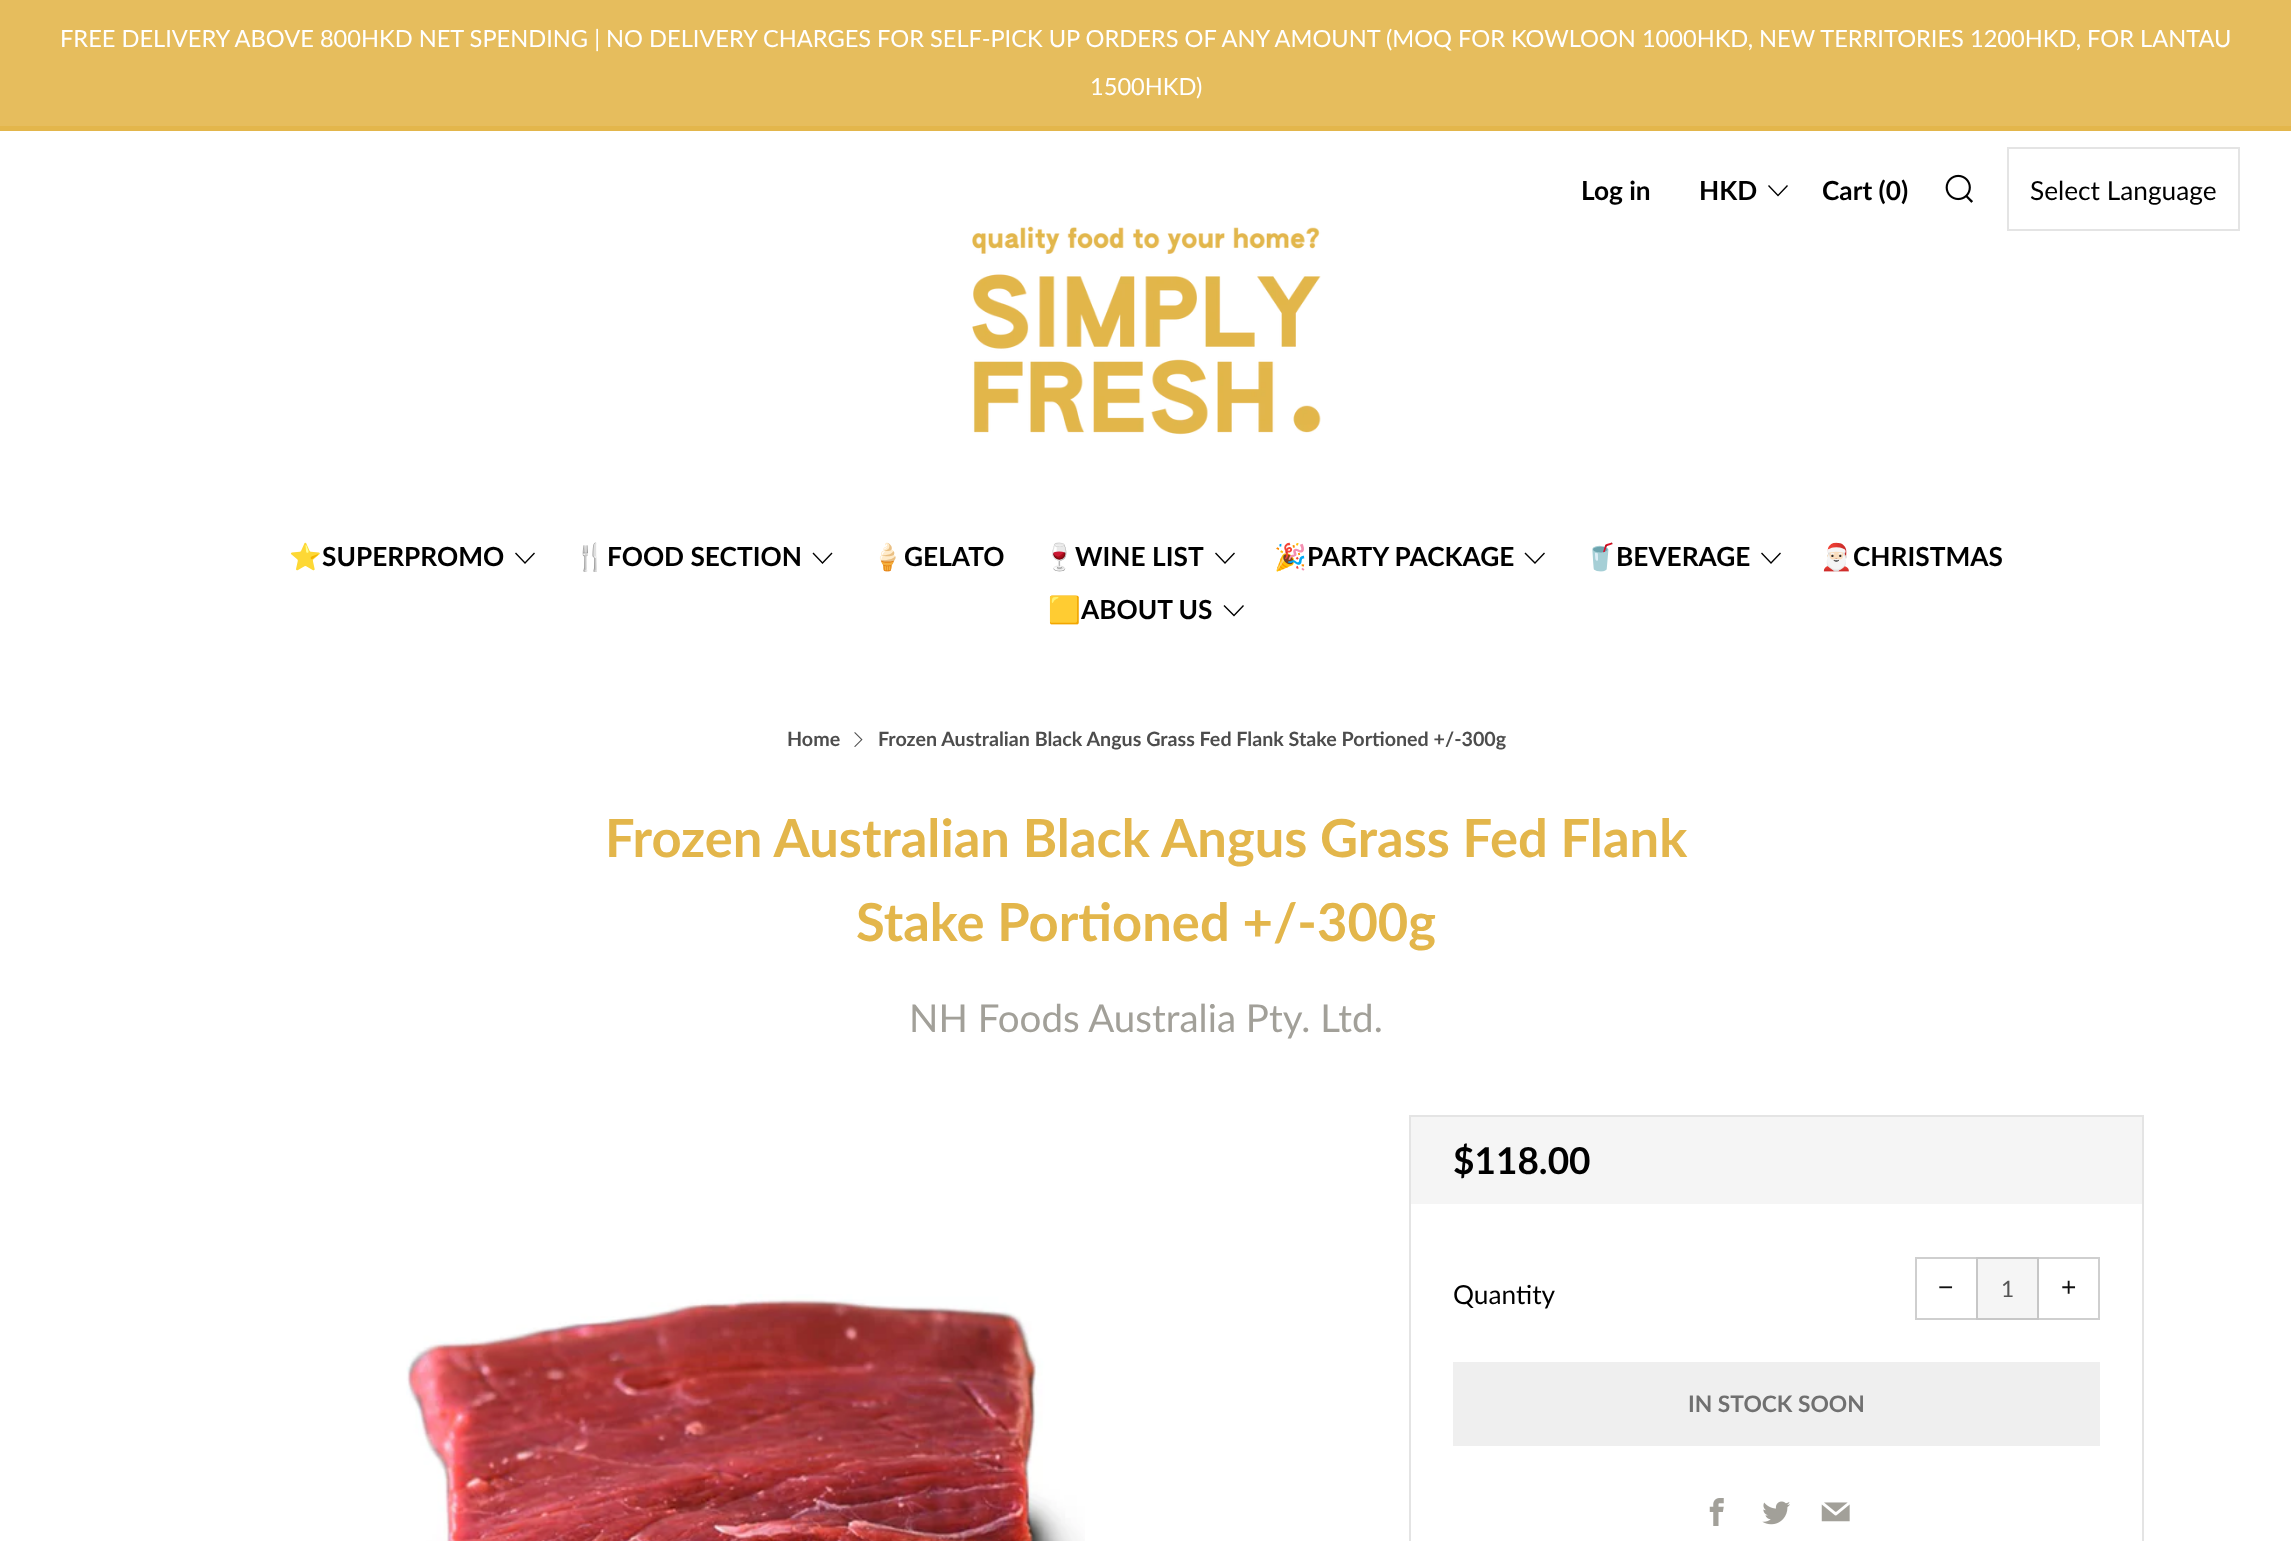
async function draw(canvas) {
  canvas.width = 2291
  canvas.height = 1541
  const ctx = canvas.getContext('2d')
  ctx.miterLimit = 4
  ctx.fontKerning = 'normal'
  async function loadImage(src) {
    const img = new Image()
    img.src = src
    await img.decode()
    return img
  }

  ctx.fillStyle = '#fff'
  ctx.fillRect(0, 0, 2291, 1541)
  ctx.fillStyle = '#e6bd5d'
  ctx.fillRect(0, 0, 2291, 126)
  ctx.font = '23.62px Lato'
  ctx.fillStyle = '#fff'
  ctx.fillText('FREE DELIVERY ABOVE 800HKD NET SPENDING | NO DELIVERY CHARGES FOR SELF-PICK UP ORDERS OF ANY AMOUNT (MOQ FOR KOWLOON 1000HKD, NEW TERRITORIES 1200HKD, FOR LANTAU', 60, 47)
  ctx.fillText('1500HKD)', 1090, 95)
  ctx.fillStyle = '#e3b64b'
  ctx.fillRect(0, 126, 2291, 5)
  ctx.font = 'bold 26.25px Lato'
  ctx.fillStyle = '#000'
  ctx.fillText('Log in', 1581, 200)
  ctx.fillText('HKD', 1699, 200)
  ctx.beginPath()
  ctx.moveTo(1769, 185)
  ctx.lineTo(1768, 186)
  ctx.lineTo(1778, 196.5)
  ctx.lineTo(1788, 186)
  ctx.lineTo(1787, 185)
  ctx.lineTo(1778, 194.5)
  ctx.closePath()
  ctx.fill()
  ctx.fillText('Cart (0)', 1822, 200)
  ctx.drawImage(await loadImage('image0.png'), 1945, 174, 28, 29)
  ctx.strokeStyle = '#e4e4e4'
  ctx.lineWidth = 2
  ctx.strokeRect(2008, 148, 231, 82)
  ctx.font = '26.25px Lato'
  ctx.fillText('Select Language', 2030, 200)
  ctx.font = 'bold 26.25px Noto Color Emoji'
  ctx.fillText('⭐', 289, 566)
  ctx.font = 'bold 26.25px Lato'
  ctx.fillText('SUPERPROMO', 322, 566)
  ctx.beginPath()
  ctx.moveTo(516, 552.5)
  ctx.lineTo(515, 553.5)
  ctx.lineTo(525, 564)
  ctx.lineTo(535, 553.5)
  ctx.lineTo(534, 552.5)
  ctx.lineTo(525, 562)
  ctx.closePath()
  ctx.fill()
  ctx.font = 'bold 26.25px Noto Color Emoji'
  ctx.fillText('🍴', 574, 566)
  ctx.font = 'bold 26.25px Lato'
  ctx.fillText('FOOD SECTION', 607, 566)
  ctx.beginPath()
  ctx.moveTo(813.5, 552.5)
  ctx.lineTo(812.5, 553.5)
  ctx.lineTo(822.5, 564)
  ctx.lineTo(832.5, 553.5)
  ctx.lineTo(831.5, 552.5)
  ctx.lineTo(822.5, 562)
  ctx.closePath()
  ctx.fill()
  ctx.font = 'bold 26.25px Noto Color Emoji'
  ctx.fillText('🍦', 871, 566)
  ctx.font = 'bold 26.25px Lato'
  ctx.fillText('GELATO', 904, 566)
  ctx.font = 'bold 26.25px Noto Color Emoji'
  ctx.fillText('🍷', 1043, 566)
  ctx.font = 'bold 26.25px Lato'
  ctx.fillText('WINE LIST', 1075, 566)
  ctx.beginPath()
  ctx.moveTo(1216, 552.5)
  ctx.lineTo(1215, 553.5)
  ctx.lineTo(1225, 564)
  ctx.lineTo(1235, 553.5)
  ctx.lineTo(1234, 552.5)
  ctx.lineTo(1225, 562)
  ctx.closePath()
  ctx.fill()
  ctx.font = 'bold 26.25px Noto Color Emoji'
  ctx.fillText('🎉', 1274, 566)
  ctx.font = 'bold 26.25px Lato'
  ctx.fillText('PARTY PACKAGE', 1307, 566)
  ctx.beginPath()
  ctx.moveTo(1525.5, 552.5)
  ctx.lineTo(1524.5, 553.5)
  ctx.lineTo(1535, 564)
  ctx.lineTo(1545, 553.5)
  ctx.lineTo(1544, 552.5)
  ctx.lineTo(1535, 562)
  ctx.closePath()
  ctx.fill()
  ctx.font = 'bold 26.25px Noto Color Emoji'
  ctx.fillText('🥤', 1584, 566)
  ctx.font = 'bold 26.25px Lato'
  ctx.fillText('BEVERAGE', 1616, 566)
  ctx.beginPath()
  ctx.moveTo(1762, 552.5)
  ctx.lineTo(1761, 553.5)
  ctx.lineTo(1771, 564)
  ctx.lineTo(1781, 553.5)
  ctx.lineTo(1780, 552.5)
  ctx.lineTo(1771, 562)
  ctx.closePath()
  ctx.fill()
  ctx.font = 'bold 26.25px Noto Color Emoji'
  ctx.fillText('🎅🏻', 1820, 566)
  ctx.font = 'bold 26.25px Lato'
  ctx.fillText('CHRISTMAS', 1853, 566)
  ctx.font = 'bold 26.25px Noto Color Emoji'
  ctx.fillText('🟨', 1048, 619)
  ctx.font = 'bold 26.25px Lato'
  ctx.fillText('ABOUT US', 1081, 619)
  ctx.beginPath()
  ctx.moveTo(1224.5, 605)
  ctx.lineTo(1223.5, 606)
  ctx.lineTo(1234, 616.5)
  ctx.lineTo(1244, 606)
  ctx.lineTo(1243, 605)
  ctx.lineTo(1234, 614.5)
  ctx.closePath()
  ctx.fill()
  ctx.drawImage(await loadImage('image1.png'), 972, 226, 349, 209)
  ctx.font = 'bold 19.7px Lato'
  ctx.fillStyle = '#4d4d4d'
  ctx.fillText('Home', 787, 746)
  ctx.drawImage(await loadImage('image2.png'), 854, 732, 9, 15)
  ctx.fillText('Frozen Australian Black Angus Grass Fed Flank Stake Portioned +/-300g', 878, 746)
  ctx.font = 'bold 52.5px Lato'
  ctx.fillStyle = '#e3b64b'
  ctx.fillText('Frozen Australian Black Angus Grass Fed Flank', 605, 857)
  ctx.fillText('Stake Portioned +/-300g', 856, 941)
  ctx.font = '38.5px Lato'
  ctx.fillStyle = '#a2a099'
  ctx.fillText('NH Foods Australia Pty. Ltd.', 909, 1032)
  ctx.drawImage(await loadImage('image3.png'), 406, 1294, 679, 247)
  ctx.strokeRect(1410, 1116, 733, 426)
  ctx.fillStyle = '#f5f5f5'
  ctx.fillRect(1411, 1117, 731, 87)
  ctx.font = 'bold 37px Lato'
  ctx.fillStyle = '#000'
  ctx.fillText('$118.00', 1453, 1174)
  ctx.font = '26.25px Lato'
  ctx.fillText('Quantity', 1453, 1304)
  ctx.strokeStyle = '#cfcfcf'
  ctx.strokeRect(1916, 1258, 61, 61)
  ctx.font = '26.25px Liberation Sans'
  ctx.fillStyle = '#111'
  ctx.fillText('−', 1938, 1296)
  ctx.fillStyle = '#f5f5f5'
  ctx.beginPath()
  ctx.rect(1977, 1258, 61, 61)
  ctx.fill()
  ctx.strokeStyle = '#c7c7c7'
  ctx.stroke()
  ctx.font = '22.75px Lato'
  ctx.fillStyle = '#555'
  ctx.fillText('1', 2001, 1297)
  ctx.fillStyle = '#ffffffcc'
  ctx.fillRect(2037, 1257, 2, 63)
  ctx.strokeStyle = '#11111133'
  ctx.strokeRect(2038, 1258, 61, 61)
  ctx.font = '26.25px Liberation Sans'
  ctx.fillStyle = '#111'
  ctx.fillText('+', 2061, 1296)
  ctx.fillStyle = '#efefef'
  ctx.fillRect(1453, 1362, 647, 84)
  ctx.font = 'bold 22.75px Lato'
  ctx.fillStyle = '#707070'
  ctx.fillText('IN STOCK SOON', 1688, 1412)
  ctx.drawImage(await loadImage('image4.png'), 1709, 1498, 15, 28)
  ctx.drawImage(await loadImage('image5.png'), 1762, 1501, 28, 24)
  ctx.drawImage(await loadImage('image6.png'), 1821, 1502, 29, 20)
}

draw(document.querySelector('canvas'))
